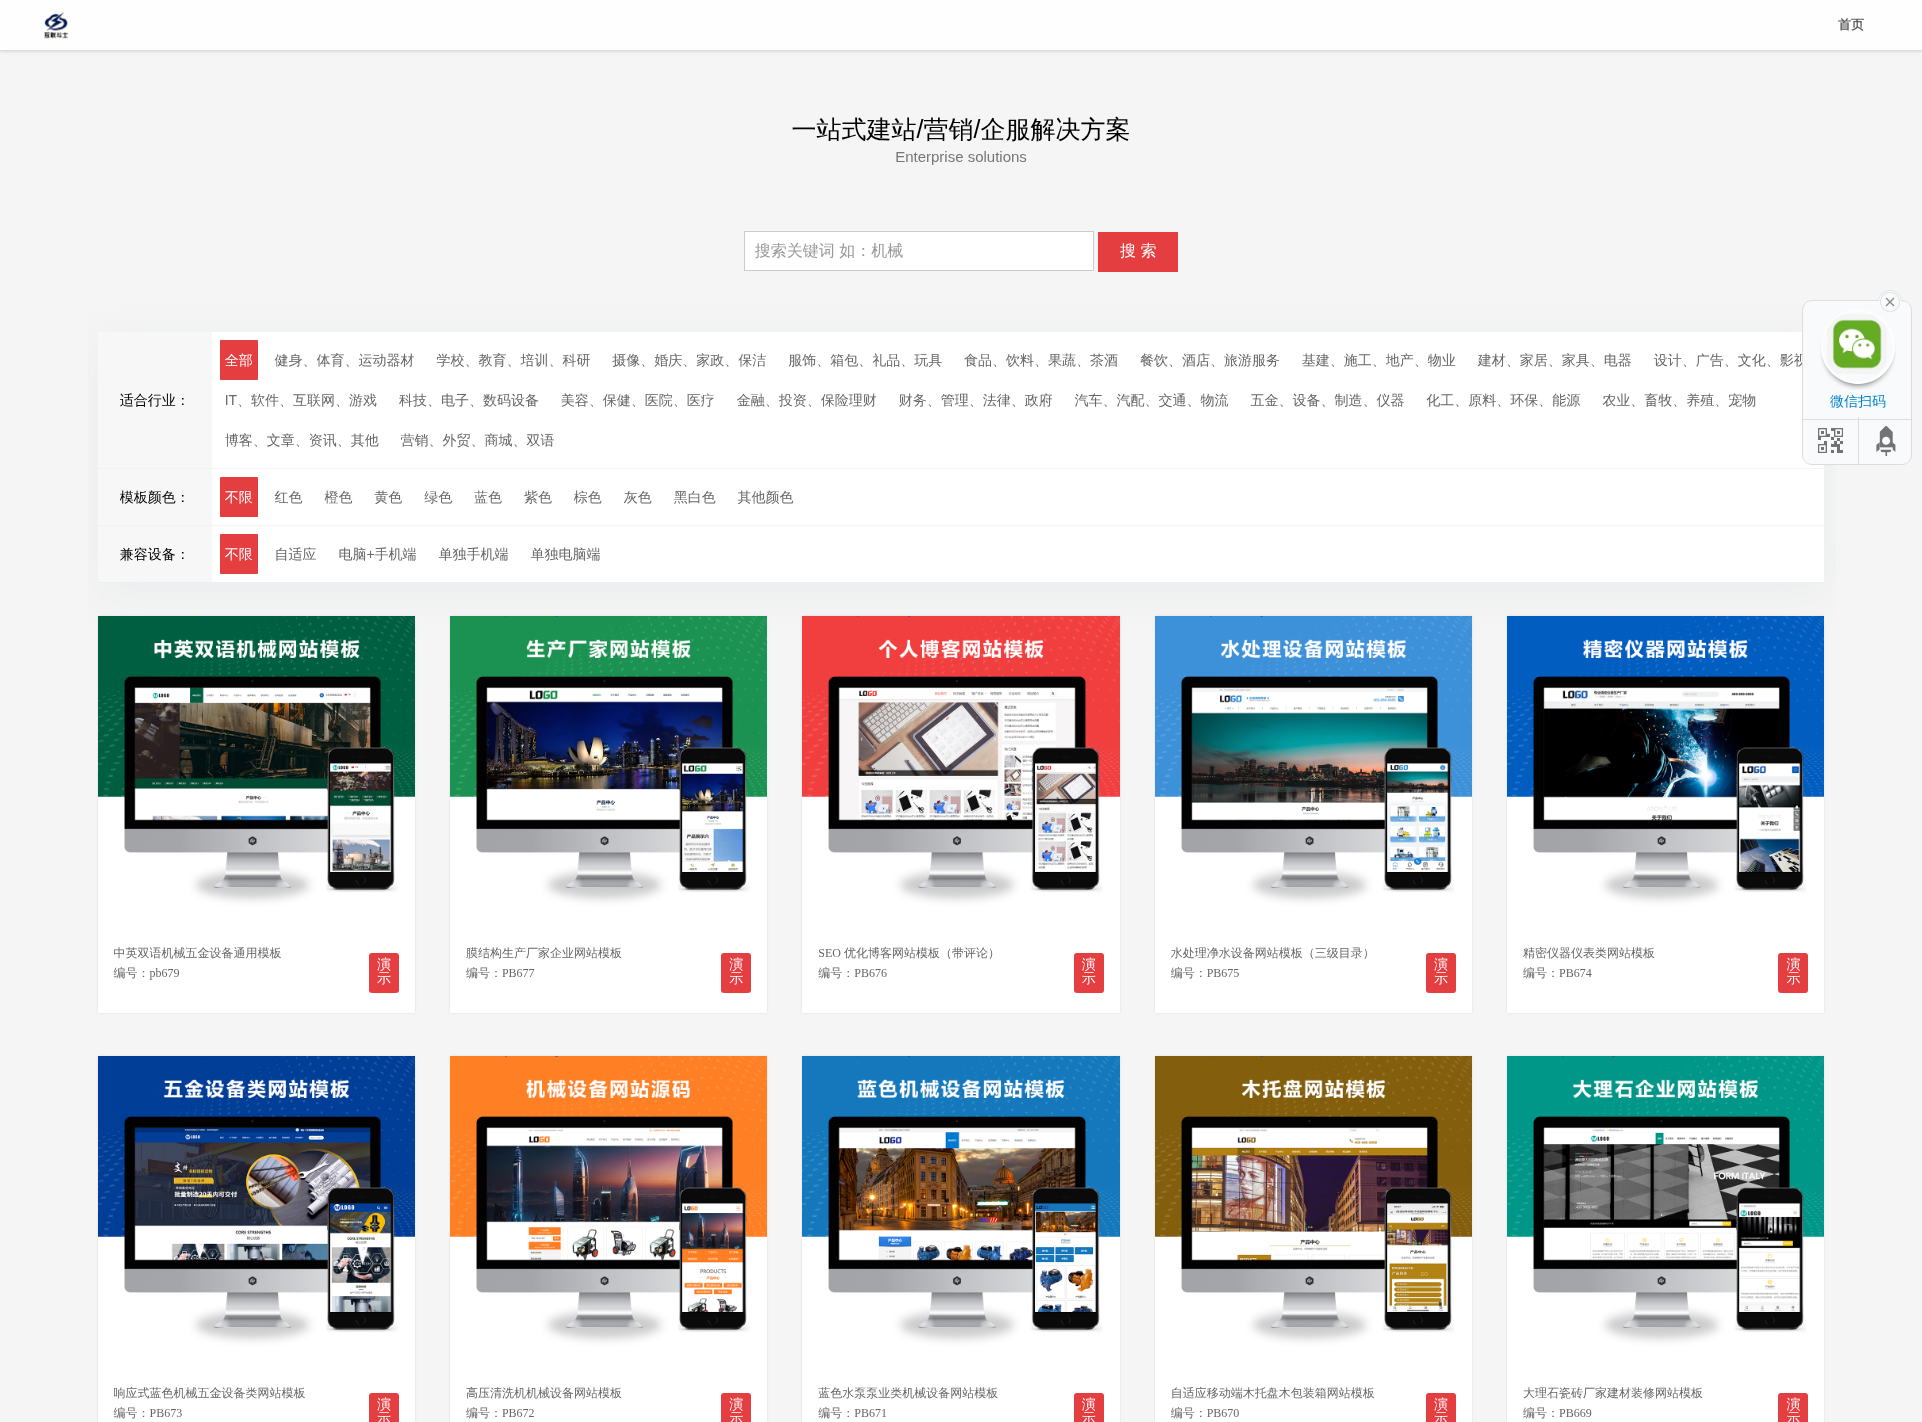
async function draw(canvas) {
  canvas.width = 1922
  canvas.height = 1422
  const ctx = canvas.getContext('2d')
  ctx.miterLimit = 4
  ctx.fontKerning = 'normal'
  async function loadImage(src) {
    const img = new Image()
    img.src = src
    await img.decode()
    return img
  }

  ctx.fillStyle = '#f5f5f5'
  ctx.fillRect(0, 0, 1922, 1422)
  ctx.fillStyle = '#0000001a'
  ctx.filter = 'blur(1.5px)'
  ctx.beginPath()
  ctx.rect(0, 1, 1922, 51)
  ctx.fill()
  ctx.filter = 'none'
  ctx.fillStyle = '#fefefe'
  ctx.fillRect(0, 0, 1922, 50)
  ctx.fillStyle = '#ddd'
  ctx.fillRect(0, 50, 1922, 1)
  ctx.drawImage(await loadImage('image0.png'), 44, 12, 25, 27)
  ctx.font = 'bold 13px WenQuanYi Zen Hei'
  ctx.fillStyle = '#5c5c5c'
  ctx.fillText('首页', 1838, 29)
  ctx.drawImage(await loadImage('image1.png'), 88, 116, 1748, 1306)
  ctx.fillStyle = '#f9fafb'
  ctx.beginPath()
  ctx.roundRect(1802.5, 300.5, 109, 164, 9.5)
  ctx.fill()
  ctx.strokeStyle = '#ddd'
  ctx.stroke()
  ctx.drawImage(await loadImage('image4.png'), 1827, 314, 60, 60)
  ctx.drawImage(await loadImage('image3.png'), 1820, 310, 76, 80)
  ctx.drawImage(await loadImage('image2.png'), 1878, 290, 24, 22)
  ctx.fillStyle = '#ddd'
  ctx.fillRect(1858, 417, 1, 47)
  ctx.fillRect(1803, 419, 109, 1)
  ctx.font = '500 14px WenQuanYi Zen Hei'
  ctx.fillStyle = '#0484cd'
  ctx.fillText('微信扫码', 1830, 406)
  ctx.drawImage(await loadImage('image5.png'), 1818, 428, 25, 25)
  ctx.drawImage(await loadImage('image6.png'), 1876, 426, 20, 30)
}

draw(document.querySelector('canvas'))
